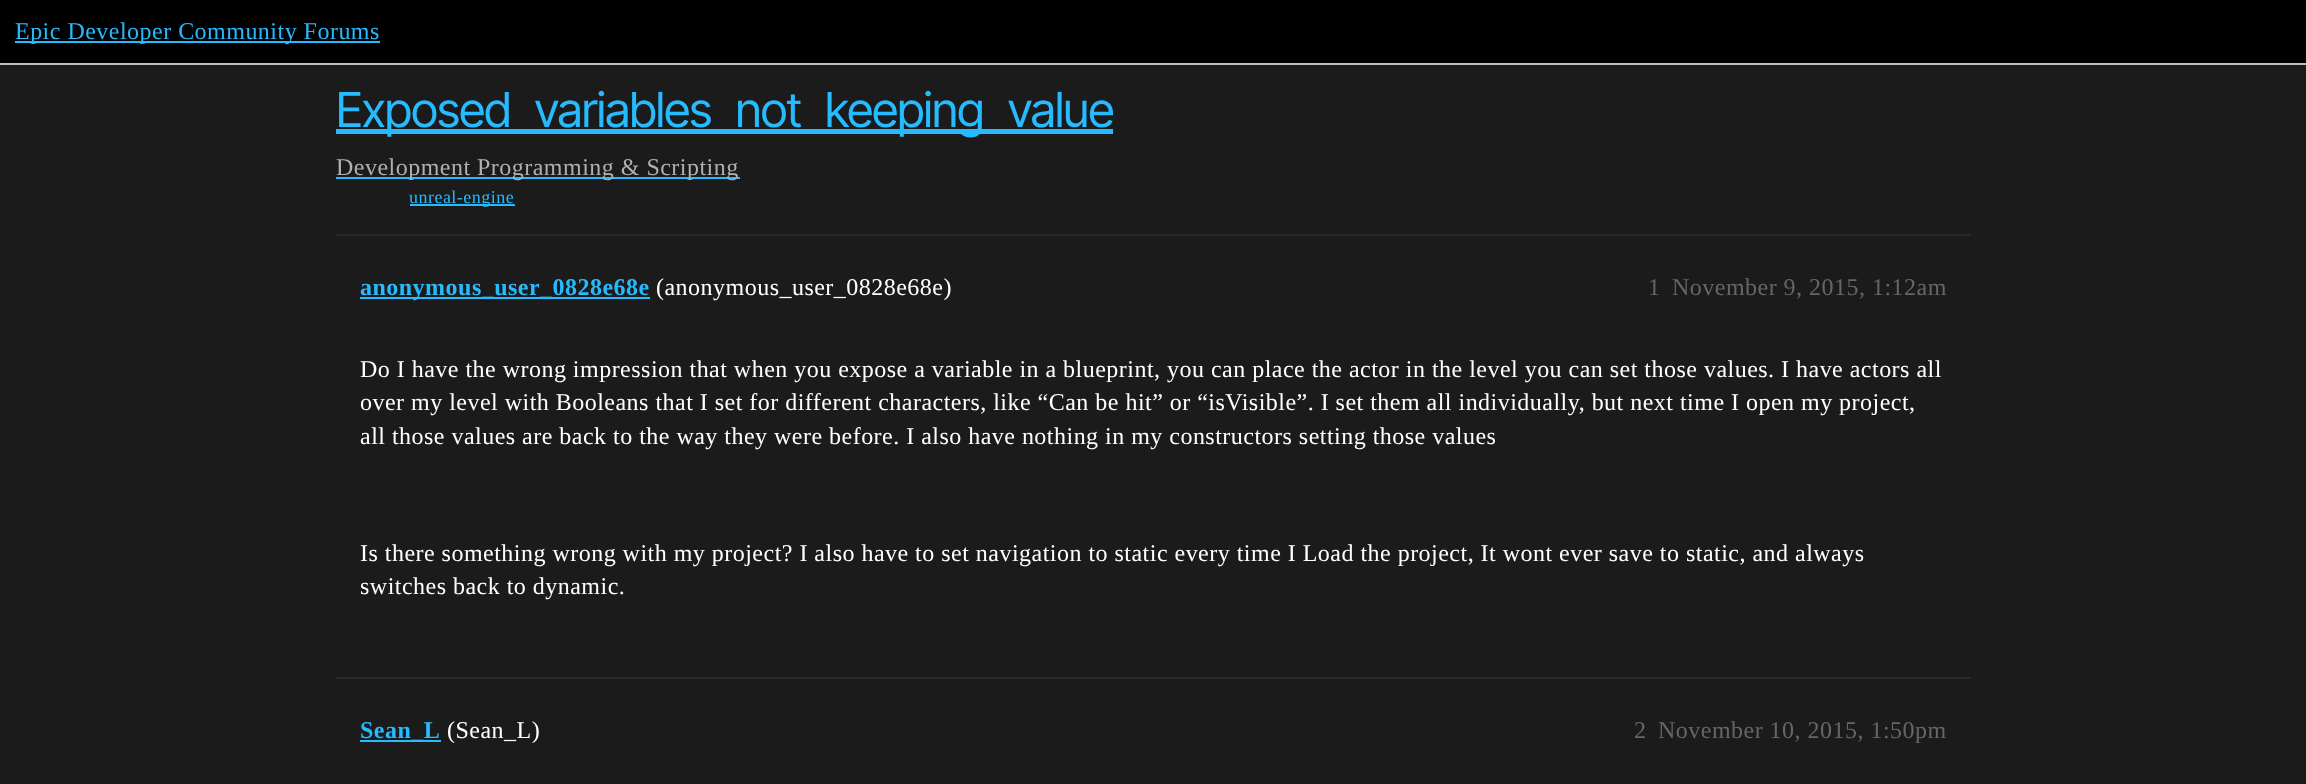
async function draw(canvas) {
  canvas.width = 2306
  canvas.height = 784
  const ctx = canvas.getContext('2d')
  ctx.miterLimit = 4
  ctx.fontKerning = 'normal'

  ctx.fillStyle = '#1b1b1b'
  ctx.fillRect(0, 0, 2306, 784)
  ctx.fillStyle = '#000'
  ctx.fillRect(0, 0, 2306, 63)
  ctx.fillStyle = '#bdbdbd'
  ctx.fillRect(0, 63, 2306, 2)
  ctx.fillStyle = '#26bbff'
  ctx.fillRect(15, 41, 365, 2)
  ctx.letterSpacing = '0.48px'
  ctx.font = '24px Liberation Serif'
  ctx.fillText('Epic Developer Community Forums', 15, 39)
  ctx.fillRect(336, 129, 777, 5)
  ctx.letterSpacing = '-0.75px'
  ctx.wordSpacing = '13.5px'
  ctx.font = '48.25px Inter Tight'
  ctx.fillText('Exposed variables not keeping value', 336, 127)
  ctx.fillRect(336, 177, 404, 2)
  ctx.letterSpacing = '0.48px'
  ctx.wordSpacing = '0px'
  ctx.font = '24px Liberation Serif'
  ctx.fillStyle = '#afb0b0'
  ctx.fillText('Development', 336, 175)
  ctx.fillText('Programming & Scripting', 477, 175)
  ctx.fillStyle = '#26bbff'
  ctx.fillRect(410, 204, 105, 2)
  ctx.font = '18px Liberation Serif'
  ctx.fillText('unreal-engine', 409, 203)
  ctx.fillStyle = '#28282c'
  ctx.fillRect(336, 234, 1635, 2)
  ctx.fillStyle = '#26bbff'
  ctx.fillRect(360, 297, 290, 2)
  ctx.font = 'bold 24px Liberation Serif'
  ctx.fillText('anonymous_user_0828e68e', 360, 295)
  ctx.font = '24px Liberation Serif'
  ctx.fillStyle = '#fff'
  ctx.fillText('(anonymous_user_0828e68e)', 656, 295)
  ctx.fillStyle = '#666'
  ctx.fillText('1', 1648, 295)
  ctx.fillText('November 9, 2015, 1:12am', 1672, 295)
  ctx.fillStyle = '#fff'
  ctx.fillText('Do I have the wrong impression that when you expose a variable in a blueprint, you can place the actor in the level you can set those values. I have actors all', 360, 377)
  ctx.fillText('over my level with Booleans that I set for different characters, like “Can be hit” or “isVisible”. I set them all individually, but next time I open my project,', 360, 410)
  ctx.fillText('all those values are back to the way they were before. I also have nothing in my constructors setting those values', 360, 444)
  ctx.fillText('Is there something wrong with my project? I also have to set navigation to static every time I Load the project, It wont ever save to static, and always', 360, 561)
  ctx.fillText('switches back to dynamic.', 360, 594)
  ctx.fillStyle = '#28282c'
  ctx.fillRect(336, 677, 1635, 2)
  ctx.fillStyle = '#26bbff'
  ctx.fillRect(360, 740, 81, 2)
  ctx.font = 'bold 24px Liberation Serif'
  ctx.fillText('Sean_L', 360, 738)
  ctx.font = '24px Liberation Serif'
  ctx.fillStyle = '#fff'
  ctx.fillText('(Sean_L)', 447, 738)
  ctx.fillStyle = '#666'
  ctx.fillText('2', 1634, 738)
  ctx.fillText('November 10, 2015, 1:50pm', 1658, 738)
}

draw(document.querySelector('canvas'))
